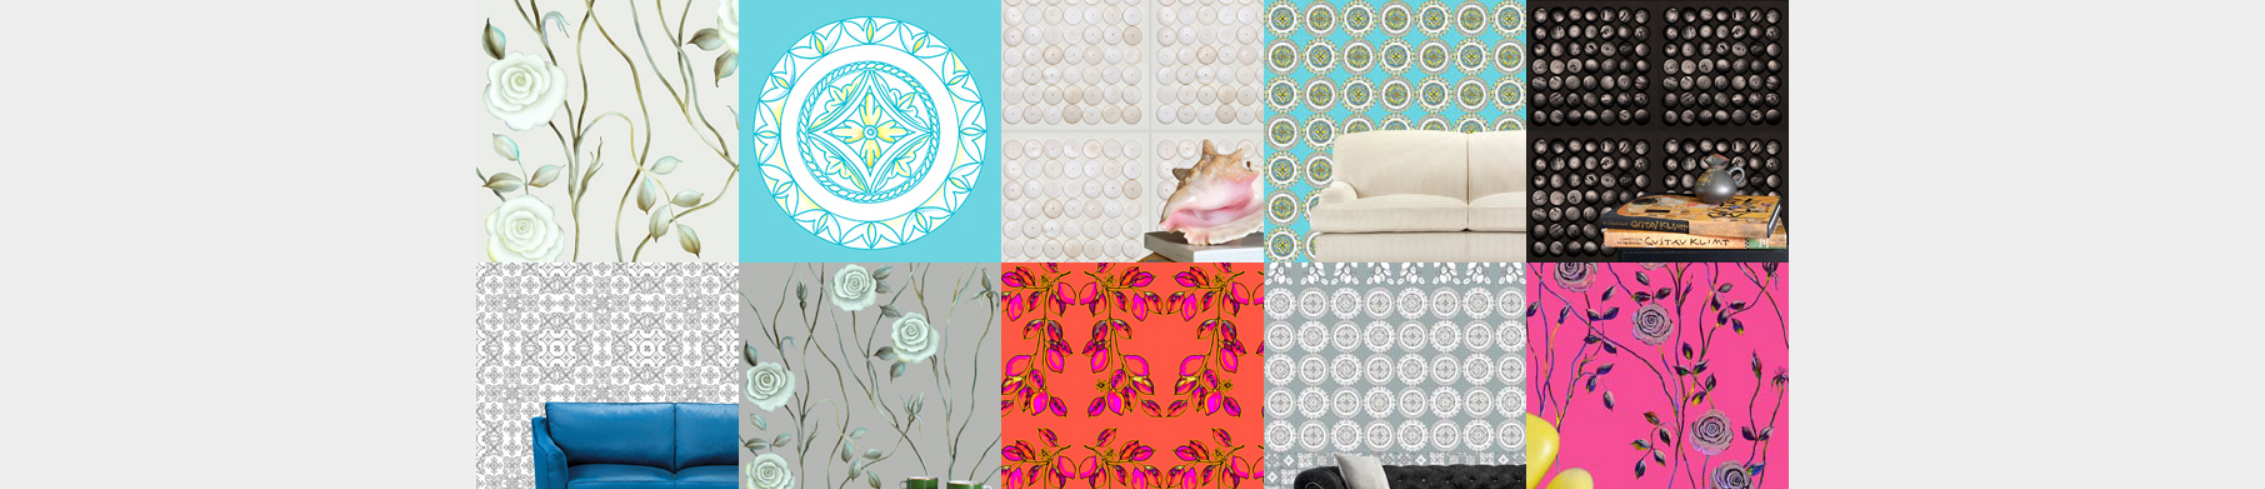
async function draw(canvas) {
  canvas.width = 2265
  canvas.height = 489
  const ctx = canvas.getContext('2d')
  ctx.miterLimit = 4
  ctx.fontKerning = 'normal'
  async function loadImage(src) {
    const img = new Image()
    img.src = src
    await img.decode()
    return img
  }

  ctx.fillStyle = '#eee'
  ctx.fillRect(0, 0, 2265, 489)
  ctx.drawImage(await loadImage('image0.png'), 476, 0, 1313, 489)
}

draw(document.querySelector('canvas'))
